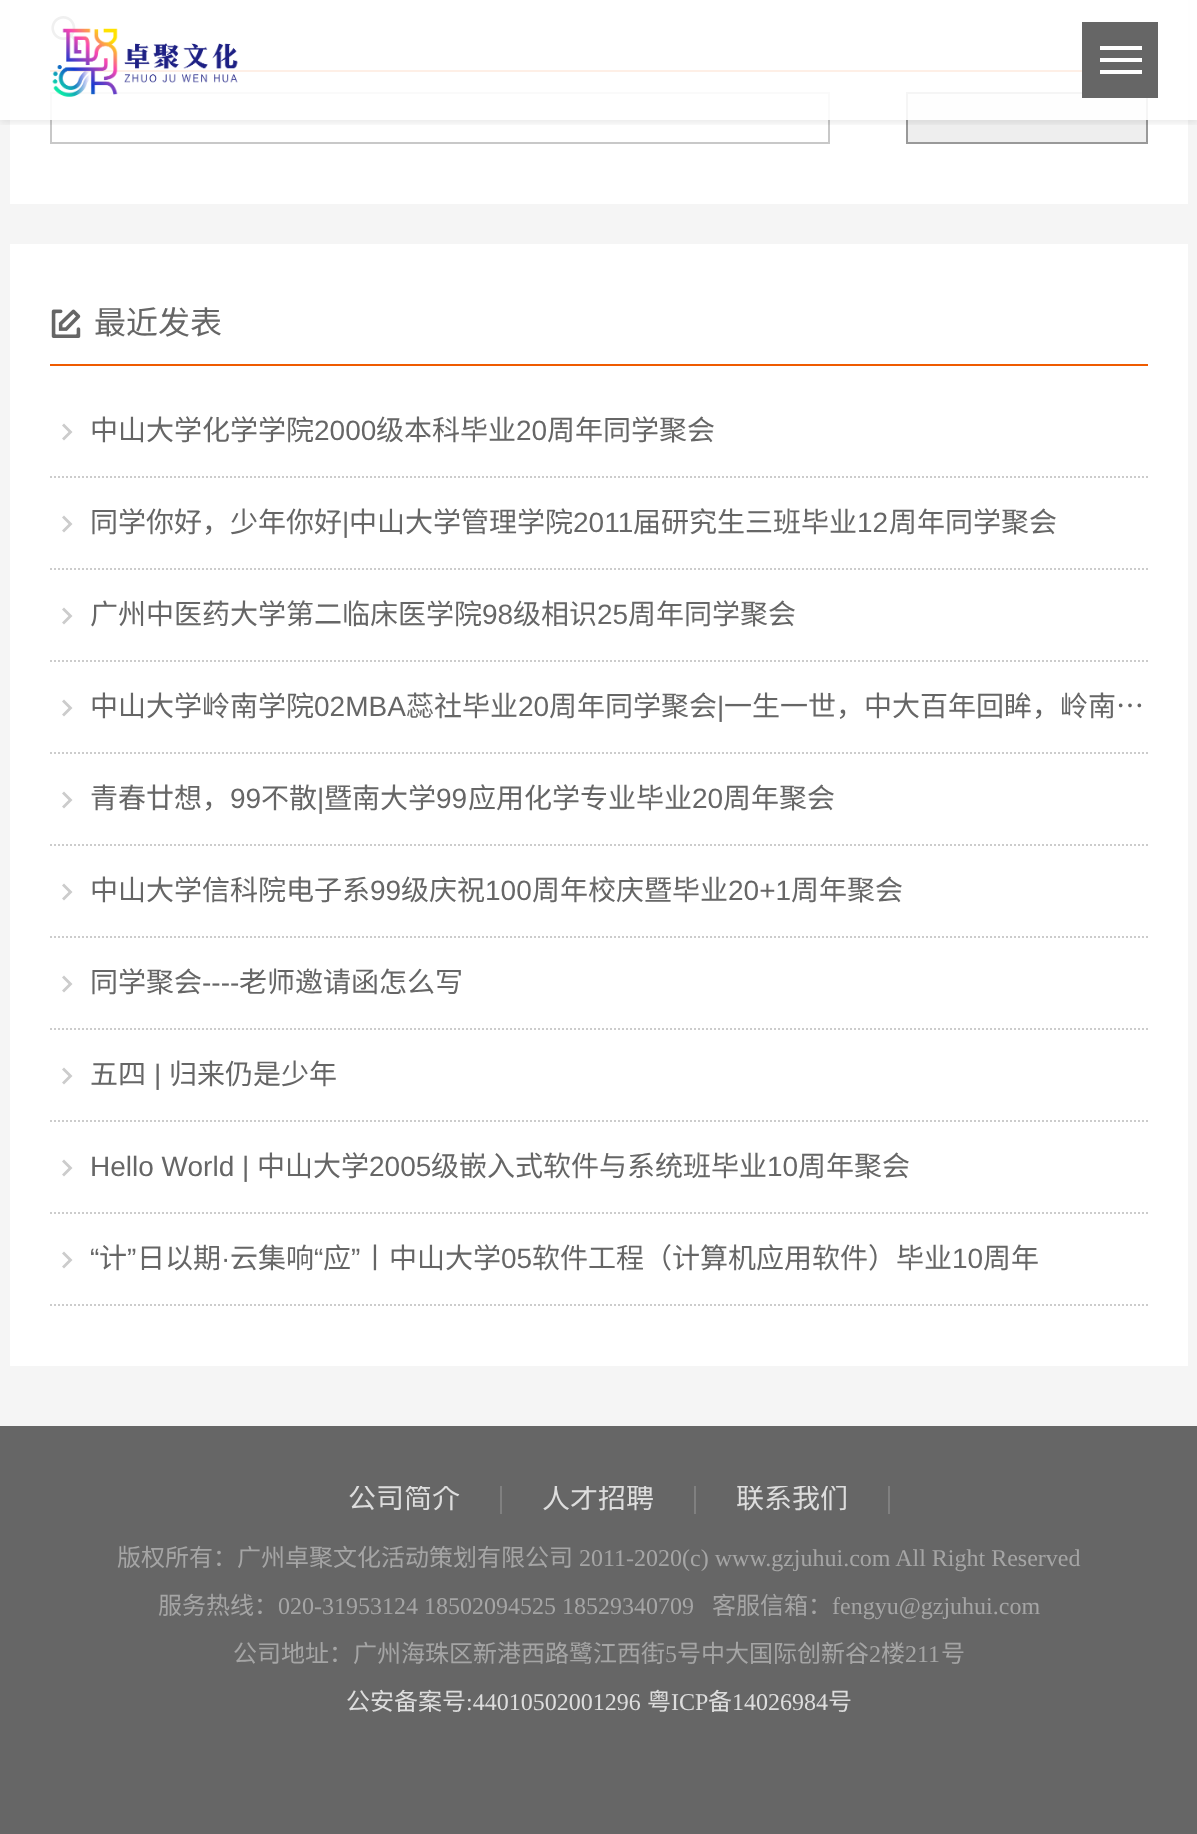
async function draw(canvas) {
  canvas.width = 1197
  canvas.height = 1834
  const ctx = canvas.getContext('2d')
  ctx.miterLimit = 4
  ctx.fontKerning = 'normal'
  async function loadImage(src) {
    const img = new Image()
    img.src = src
    await img.decode()
    return img
  }

  ctx.fillStyle = '#f5f5f5'
  ctx.fillRect(0, 0, 1197, 1834)
  ctx.fillStyle = '#fff'
  ctx.fillRect(10, 0, 1178, 204)
  ctx.fillStyle = '#ef5b00'
  ctx.fillRect(50, 70, 1032, 2)
  ctx.drawImage(await loadImage('image1.png'), 51, 16, 30, 30)
  ctx.strokeStyle = '#c8c8c8'
  ctx.lineWidth = 2
  ctx.strokeRect(51, 93, 778, 50)
  ctx.fillStyle = '#eee'
  ctx.beginPath()
  ctx.rect(907, 93, 240, 50)
  ctx.fill()
  ctx.strokeStyle = '#999'
  ctx.stroke()
  ctx.save()
  ctx.beginPath()
  ctx.rect(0, 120, 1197, 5)
  ctx.clip()
  ctx.fillStyle = '#0000001a'
  ctx.filter = 'blur(4px)'
  ctx.beginPath()
  ctx.rect(0, 2, 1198, 120)
  ctx.fill()
  ctx.filter = 'none'
  ctx.restore()
  ctx.fillStyle = '#ffffffe6'
  ctx.fillRect(0, 0, 1197, 120)
  ctx.drawImage(await loadImage('image0.png'), 52, 28, 186, 69)
  ctx.fillStyle = '#666'
  ctx.fillRect(1082, 22, 76, 76)
  ctx.fillStyle = '#fff'
  ctx.fillRect(1100, 46, 42, 4)
  ctx.fillRect(1100, 58, 42, 4)
  ctx.fillRect(1100, 70, 42, 4)
  ctx.fillRect(10, 244, 1178, 1122)
  ctx.fillStyle = '#ef5b00'
  ctx.fillRect(50, 364, 1098, 2)
  ctx.drawImage(await loadImage('image2.png'), 51, 309, 30, 29)
  ctx.font = '32px Noto Sans CJK SC'
  ctx.fillStyle = '#666'
  ctx.fillText('最近发表', 94, 334)
  ctx.beginPath()
  ctx.moveTo(50, 477)
  ctx.lineTo(1148, 477)
  ctx.strokeStyle = '#ccc'
  ctx.setLineDash([2, 2])
  ctx.stroke()
  ctx.fillStyle = '#ccc'
  ctx.beginPath()
  ctx.moveTo(64, 423.5)
  ctx.lineTo(72.5, 432)
  ctx.lineTo(64, 440.5)
  ctx.lineTo(62, 438.5)
  ctx.lineTo(68.5, 432)
  ctx.lineTo(62, 425.5)
  ctx.closePath()
  ctx.fill()
  ctx.font = '28px Noto Sans CJK SC'
  ctx.fillStyle = '#666'
  ctx.fillText('中山大学化学学院', 90, 440)
  ctx.font = '28px Liberation Sans'
  ctx.fillText('2000', 314, 440)
  ctx.font = '28px Noto Sans CJK SC'
  ctx.fillText('级本科毕业', 376, 440)
  ctx.font = '28px Liberation Sans'
  ctx.fillText('20', 516, 440)
  ctx.font = '28px Noto Sans CJK SC'
  ctx.fillText('周年同学聚会', 547, 440)
  ctx.beginPath()
  ctx.moveTo(50, 569)
  ctx.lineTo(1148, 569)
  ctx.stroke()
  ctx.fillStyle = '#ccc'
  ctx.beginPath()
  ctx.moveTo(64, 515.5)
  ctx.lineTo(72.5, 524)
  ctx.lineTo(64, 532.5)
  ctx.lineTo(62, 530.5)
  ctx.lineTo(68.5, 524)
  ctx.lineTo(62, 517.5)
  ctx.closePath()
  ctx.fill()
  ctx.fillStyle = '#666'
  ctx.fillText('同学你好，少年你好', 90, 532)
  ctx.font = '28px Liberation Sans'
  ctx.fillText('|', 342, 532)
  ctx.font = '28px Noto Sans CJK SC'
  ctx.fillText('中山大学管理学院', 349, 532)
  ctx.font = '28px Liberation Sans'
  ctx.fillText('2011', 573, 532)
  ctx.font = '28px Noto Sans CJK SC'
  ctx.fillText('届研究生三班毕业', 633, 532)
  ctx.font = '28px Liberation Sans'
  ctx.fillText('12', 857, 532)
  ctx.font = '28px Noto Sans CJK SC'
  ctx.fillText('周年同学聚会', 889, 532)
  ctx.beginPath()
  ctx.moveTo(50, 661)
  ctx.lineTo(1148, 661)
  ctx.stroke()
  ctx.fillStyle = '#ccc'
  ctx.beginPath()
  ctx.moveTo(64, 607.5)
  ctx.lineTo(72.5, 616)
  ctx.lineTo(64, 624.5)
  ctx.lineTo(62, 622.5)
  ctx.lineTo(68.5, 616)
  ctx.lineTo(62, 609.5)
  ctx.closePath()
  ctx.fill()
  ctx.fillStyle = '#666'
  ctx.fillText('广州中医药大学第二临床医学院', 90, 624)
  ctx.font = '28px Liberation Sans'
  ctx.fillText('98', 482, 624)
  ctx.font = '28px Noto Sans CJK SC'
  ctx.fillText('级相识', 513, 624)
  ctx.font = '28px Liberation Sans'
  ctx.fillText('25', 597, 624)
  ctx.font = '28px Noto Sans CJK SC'
  ctx.fillText('周年同学聚会', 628, 624)
  ctx.beginPath()
  ctx.moveTo(50, 753)
  ctx.lineTo(1148, 753)
  ctx.stroke()
  ctx.fillStyle = '#ccc'
  ctx.beginPath()
  ctx.moveTo(64, 699.5)
  ctx.lineTo(72.5, 708)
  ctx.lineTo(64, 716.5)
  ctx.lineTo(62, 714.5)
  ctx.lineTo(68.5, 708)
  ctx.lineTo(62, 701.5)
  ctx.closePath()
  ctx.fill()
  ctx.fillStyle = '#666'
  ctx.fillText('中山大学岭南学院', 90, 716)
  ctx.font = '28px Liberation Sans'
  ctx.fillText('02MBA', 314, 716)
  ctx.font = '28px Noto Sans CJK SC'
  ctx.fillText('蕊社毕业', 406, 716)
  ctx.font = '28px Liberation Sans'
  ctx.fillText('20', 518, 716)
  ctx.font = '28px Noto Sans CJK SC'
  ctx.fillText('周年同学聚会', 549, 716)
  ctx.font = '28px Liberation Sans'
  ctx.fillText('|', 717, 716)
  ctx.font = '28px Noto Sans CJK SC'
  ctx.fillText('一生一世，中大百年回眸，岭南…', 724, 716)
  ctx.beginPath()
  ctx.moveTo(50, 845)
  ctx.lineTo(1148, 845)
  ctx.stroke()
  ctx.fillStyle = '#ccc'
  ctx.beginPath()
  ctx.moveTo(64, 791.5)
  ctx.lineTo(72.5, 800)
  ctx.lineTo(64, 808.5)
  ctx.lineTo(62, 806.5)
  ctx.lineTo(68.5, 800)
  ctx.lineTo(62, 793.5)
  ctx.closePath()
  ctx.fill()
  ctx.fillStyle = '#666'
  ctx.fillText('青春廿想，', 90, 808)
  ctx.font = '28px Liberation Sans'
  ctx.fillText('99', 230, 808)
  ctx.font = '28px Noto Sans CJK SC'
  ctx.fillText('不散', 261, 808)
  ctx.font = '28px Liberation Sans'
  ctx.fillText('|', 317, 808)
  ctx.font = '28px Noto Sans CJK SC'
  ctx.fillText('暨南大学', 324, 808)
  ctx.font = '28px Liberation Sans'
  ctx.fillText('99', 436, 808)
  ctx.font = '28px Noto Sans CJK SC'
  ctx.fillText('应用化学专业毕业', 468, 808)
  ctx.font = '28px Liberation Sans'
  ctx.fillText('20', 692, 808)
  ctx.font = '28px Noto Sans CJK SC'
  ctx.fillText('周年聚会', 723, 808)
  ctx.beginPath()
  ctx.moveTo(50, 937)
  ctx.lineTo(1148, 937)
  ctx.stroke()
  ctx.fillStyle = '#ccc'
  ctx.beginPath()
  ctx.moveTo(64, 883.5)
  ctx.lineTo(72.5, 892)
  ctx.lineTo(64, 900.5)
  ctx.lineTo(62, 898.5)
  ctx.lineTo(68.5, 892)
  ctx.lineTo(62, 885.5)
  ctx.closePath()
  ctx.fill()
  ctx.fillStyle = '#666'
  ctx.fillText('中山大学信科院电子系', 90, 900)
  ctx.font = '28px Liberation Sans'
  ctx.fillText('99', 370, 900)
  ctx.font = '28px Noto Sans CJK SC'
  ctx.fillText('级庆祝', 401, 900)
  ctx.font = '28px Liberation Sans'
  ctx.fillText('100', 485, 900)
  ctx.font = '28px Noto Sans CJK SC'
  ctx.fillText('周年校庆暨毕业', 532, 900)
  ctx.font = '28px Liberation Sans'
  ctx.fillText('20+1', 728, 900)
  ctx.font = '28px Noto Sans CJK SC'
  ctx.fillText('周年聚会', 791, 900)
  ctx.beginPath()
  ctx.moveTo(50, 1029)
  ctx.lineTo(1148, 1029)
  ctx.stroke()
  ctx.fillStyle = '#ccc'
  ctx.beginPath()
  ctx.moveTo(64, 975.5)
  ctx.lineTo(72.5, 984)
  ctx.lineTo(64, 992.5)
  ctx.lineTo(62, 990.5)
  ctx.lineTo(68.5, 984)
  ctx.lineTo(62, 977.5)
  ctx.closePath()
  ctx.fill()
  ctx.fillStyle = '#666'
  ctx.fillText('同学聚会', 90, 992)
  ctx.font = '28px Liberation Sans'
  ctx.fillText('----', 202, 992)
  ctx.font = '28px Noto Sans CJK SC'
  ctx.fillText('老师邀请函怎么写', 239, 992)
  ctx.beginPath()
  ctx.moveTo(50, 1121)
  ctx.lineTo(1148, 1121)
  ctx.stroke()
  ctx.fillStyle = '#ccc'
  ctx.beginPath()
  ctx.moveTo(64, 1067.5)
  ctx.lineTo(72.5, 1076)
  ctx.lineTo(64, 1084.5)
  ctx.lineTo(62, 1082.5)
  ctx.lineTo(68.5, 1076)
  ctx.lineTo(62, 1069.5)
  ctx.closePath()
  ctx.fill()
  ctx.fillStyle = '#666'
  ctx.fillText('五四', 90, 1084)
  ctx.font = '28px Liberation Sans'
  ctx.fillText('|', 154, 1084)
  ctx.font = '28px Noto Sans CJK SC'
  ctx.fillText('归来仍是少年', 169, 1084)
  ctx.beginPath()
  ctx.moveTo(50, 1213)
  ctx.lineTo(1148, 1213)
  ctx.stroke()
  ctx.fillStyle = '#ccc'
  ctx.beginPath()
  ctx.moveTo(64, 1159.5)
  ctx.lineTo(72.5, 1168)
  ctx.lineTo(64, 1176.5)
  ctx.lineTo(62, 1174.5)
  ctx.lineTo(68.5, 1168)
  ctx.lineTo(62, 1161.5)
  ctx.closePath()
  ctx.fill()
  ctx.font = '28px Liberation Sans'
  ctx.fillStyle = '#666'
  ctx.fillText('Hello World |', 90, 1176)
  ctx.font = '28px Noto Sans CJK SC'
  ctx.fillText('中山大学', 257, 1176)
  ctx.font = '28px Liberation Sans'
  ctx.fillText('2005', 369, 1176)
  ctx.font = '28px Noto Sans CJK SC'
  ctx.fillText('级嵌入式软件与系统班毕业', 431, 1176)
  ctx.font = '28px Liberation Sans'
  ctx.fillText('10', 767, 1176)
  ctx.font = '28px Noto Sans CJK SC'
  ctx.fillText('周年聚会', 798, 1176)
  ctx.beginPath()
  ctx.moveTo(50, 1305)
  ctx.lineTo(1148, 1305)
  ctx.stroke()
  ctx.fillStyle = '#ccc'
  ctx.beginPath()
  ctx.moveTo(64, 1251.5)
  ctx.lineTo(72.5, 1260)
  ctx.lineTo(64, 1268.5)
  ctx.lineTo(62, 1266.5)
  ctx.lineTo(68.5, 1260)
  ctx.lineTo(62, 1253.5)
  ctx.closePath()
  ctx.fill()
  ctx.font = '28px Liberation Sans'
  ctx.fillStyle = '#666'
  ctx.fillText('“', 90, 1268)
  ctx.font = '28px Noto Sans CJK SC'
  ctx.fillText('计', 99, 1268)
  ctx.font = '28px Liberation Sans'
  ctx.fillText('”', 127, 1268)
  ctx.font = '28px Noto Sans CJK SC'
  ctx.fillText('日以期', 137, 1268)
  ctx.font = '28px Liberation Sans'
  ctx.fillText('·', 221, 1268)
  ctx.font = '28px Noto Sans CJK SC'
  ctx.fillText('云集响', 230, 1268)
  ctx.font = '28px Liberation Sans'
  ctx.fillText('“', 314, 1268)
  ctx.font = '28px Noto Sans CJK SC'
  ctx.fillText('应', 323, 1268)
  ctx.font = '28px Liberation Sans'
  ctx.fillText('”', 351, 1268)
  ctx.font = '28px Noto Sans CJK SC'
  ctx.fillText('丨中山大学', 361, 1268)
  ctx.font = '28px Liberation Sans'
  ctx.fillText('05', 501, 1268)
  ctx.font = '28px Noto Sans CJK SC'
  ctx.fillText('软件工程（计算机应用软件）毕业', 532, 1268)
  ctx.font = '28px Liberation Sans'
  ctx.fillText('10', 952, 1268)
  ctx.font = '28px Noto Sans CJK SC'
  ctx.fillText('周年', 983, 1268)
  ctx.fillRect(0, 1426, 1197, 408)
  ctx.fillStyle = '#808080'
  ctx.fillRect(500, 1486, 2, 28)
  ctx.save()
  ctx.beginPath()
  ctx.rect(20, 1486, 1158, 240)
  ctx.clip()
  ctx.fillStyle = '#ddd'
  ctx.fillText('公司简介', 348, 1508)
  ctx.restore()
  ctx.fillRect(694, 1486, 2, 28)
  ctx.save()
  ctx.beginPath()
  ctx.rect(20, 1486, 1158, 240)
  ctx.clip()
  ctx.fillStyle = '#ddd'
  ctx.fillText('人才招聘', 542, 1508)
  ctx.restore()
  ctx.fillRect(888, 1486, 2, 28)
  ctx.save()
  ctx.beginPath()
  ctx.rect(20, 1486, 1158, 240)
  ctx.clip()
  ctx.fillStyle = '#ddd'
  ctx.fillText('联系我们', 736, 1508)
  ctx.restore()
  ctx.font = '24px Noto Sans CJK SC'
  ctx.fillStyle = '#a5a5a5'
  ctx.fillText('版权所有：广州卓聚文化活动策划有限公司', 117, 1566)
  ctx.font = '24px Liberation Serif'
  ctx.fillText('2011-2020(c) www.gzjuhui.com All Right Reserved', 579, 1566)
  ctx.font = '24px Noto Sans CJK SC'
  ctx.fillText('服务热线：', 158, 1614)
  ctx.font = '24px Liberation Serif'
  ctx.fillText('020-31953124 18502094525 18529340709', 278, 1614)
  ctx.font = '24px Noto Sans CJK SC'
  ctx.fillText('客服信箱：', 712, 1614)
  ctx.font = '24px Liberation Serif'
  ctx.fillText('fengyu@gzjuhui.com', 832, 1614)
  ctx.font = '24px Noto Sans CJK SC'
  ctx.fillText('公司地址：广州海珠区新港西路鹭江西街', 233, 1662)
  ctx.font = '24px Liberation Serif'
  ctx.fillText('5', 665, 1662)
  ctx.font = '24px Noto Sans CJK SC'
  ctx.fillText('号中大国际创新谷', 677, 1662)
  ctx.font = '24px Liberation Serif'
  ctx.fillText('2', 869, 1662)
  ctx.font = '24px Noto Sans CJK SC'
  ctx.fillText('楼', 881, 1662)
  ctx.font = '24px Liberation Serif'
  ctx.fillText('211', 905, 1662)
  ctx.font = '24px Noto Sans CJK SC'
  ctx.fillText('号', 941, 1662)
  ctx.fillStyle = '#ddd'
  ctx.fillText('公安备案号', 346, 1710)
  ctx.font = '24px Liberation Serif'
  ctx.fillText(':44010502001296', 466, 1710)
  ctx.font = '24px Noto Sans CJK SC'
  ctx.fillText('粤', 647, 1710)
  ctx.font = '24px Liberation Serif'
  ctx.fillText('ICP', 671, 1710)
  ctx.font = '24px Noto Sans CJK SC'
  ctx.fillText('备', 708, 1710)
  ctx.font = '24px Liberation Serif'
  ctx.fillText('14026984', 732, 1710)
  ctx.font = '24px Noto Sans CJK SC'
  ctx.fillText('号', 828, 1710)
}

draw(document.querySelector('canvas'))
